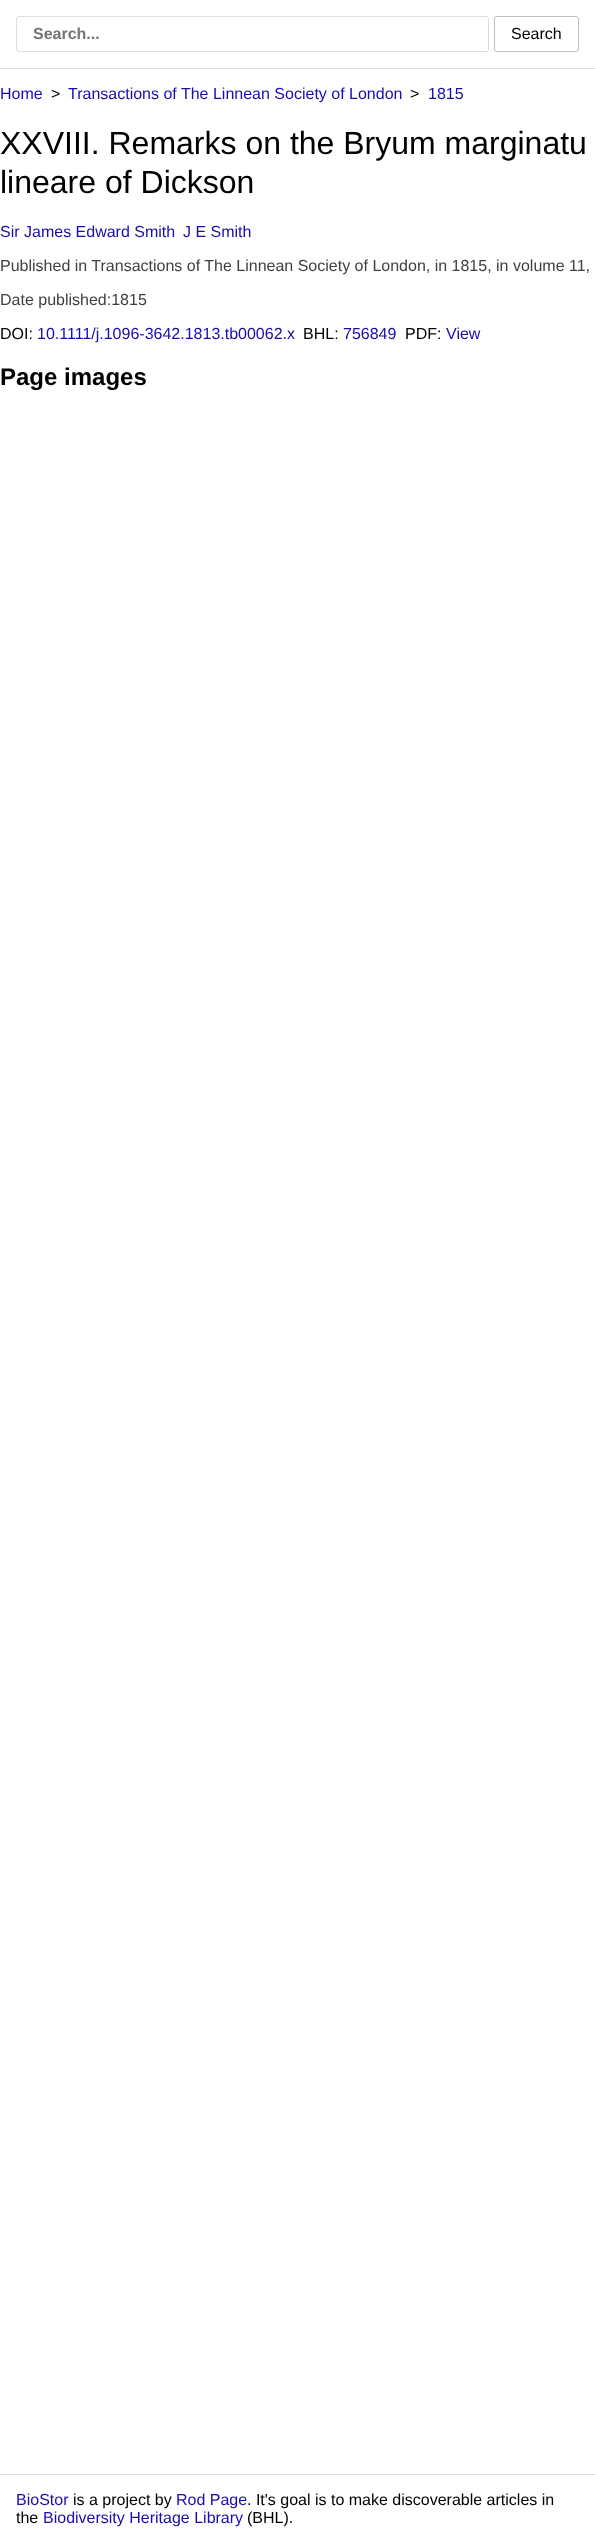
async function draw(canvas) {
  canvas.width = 595
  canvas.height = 2543
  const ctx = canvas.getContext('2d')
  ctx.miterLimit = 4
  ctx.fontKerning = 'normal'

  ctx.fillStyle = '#fff'
  ctx.fillRect(0, 0, 595, 2543)
  ctx.fillStyle = '#dedede'
  ctx.fillRect(0, 68, 595, 1)
  ctx.beginPath()
  ctx.roundRect(16.5, 16.5, 472, 35, 2.5)
  ctx.strokeStyle = '#dedede'
  ctx.stroke()
  ctx.font = 'bold 16px Liberation Sans'
  ctx.fillStyle = '#757575'
  ctx.fillText('Search...', 33, 39)
  ctx.beginPath()
  ctx.roundRect(494.5, 16.5, 84, 35, 2.5)
  ctx.strokeStyle = '#c0c0c0'
  ctx.stroke()
  ctx.font = '16px Liberation Sans'
  ctx.fillStyle = '#000'
  ctx.fillText('Search', 511, 39)
  ctx.fillStyle = '#1a0dab'
  ctx.fillText('Home', 0, 99)
  ctx.fillStyle = '#000'
  ctx.fillText('>', 51, 99)
  ctx.fillStyle = '#1a0dab'
  ctx.fillText('Transactions of The Linnean Society of London', 68, 99)
  ctx.fillStyle = '#000'
  ctx.fillText('>', 410, 99)
  ctx.fillStyle = '#1a0dab'
  ctx.fillText('1815', 428, 99)
  ctx.font = '32px Liberation Sans'
  ctx.fillStyle = '#000'
  ctx.fillText('XXVIII. Remarks on the Bryum marginatu', 0, 154)
  ctx.fillText('lineare of Dickson', 0, 193)
  ctx.font = '16px Liberation Sans'
  ctx.fillStyle = '#1a0dab'
  ctx.fillText('Sir James Edward Smith', 0, 237)
  ctx.fillText('J E Smith', 183, 237)
  ctx.fillStyle = '#404040'
  ctx.fillText('Published in Transactions of The Linnean Society of London, in 1815, in volume 11,', 0, 271)
  ctx.fillText('Date published:1815', 0, 305)
  ctx.fillStyle = '#000'
  ctx.fillText('DOI:', 0, 339)
  ctx.fillStyle = '#1a0dab'
  ctx.fillText('10.1111/j.1096-3642.1813.tb00062.x', 37, 339)
  ctx.fillStyle = '#000'
  ctx.fillText('BHL:', 303, 339)
  ctx.fillStyle = '#1a0dab'
  ctx.fillText('756849', 343, 339)
  ctx.fillStyle = '#000'
  ctx.fillText('PDF:', 405, 339)
  ctx.fillStyle = '#1a0dab'
  ctx.fillText('View', 446, 339)
  ctx.font = 'bold 24px Liberation Sans'
  ctx.fillStyle = '#000'
  ctx.fillText('Page images', 0, 385)
  ctx.fillStyle = '#dedede'
  ctx.fillRect(0, 2474, 595, 1)
  ctx.font = '16px Liberation Sans'
  ctx.fillStyle = '#1a0dab'
  ctx.fillText('BioStor', 16, 2505)
  ctx.fillStyle = '#000'
  ctx.fillText('is a project by', 73, 2505)
  ctx.fillStyle = '#1a0dab'
  ctx.fillText('Rod Page', 176, 2505)
  ctx.fillStyle = '#000'
  ctx.fillText('. It\'s goal is to make discoverable articles in', 247, 2505)
  ctx.fillText('the', 16, 2523)
  ctx.fillStyle = '#1a0dab'
  ctx.fillText('Biodiversity Heritage Library', 43, 2523)
  ctx.fillStyle = '#000'
  ctx.fillText('(BHL).', 247, 2523)
}

draw(document.querySelector('canvas'))
